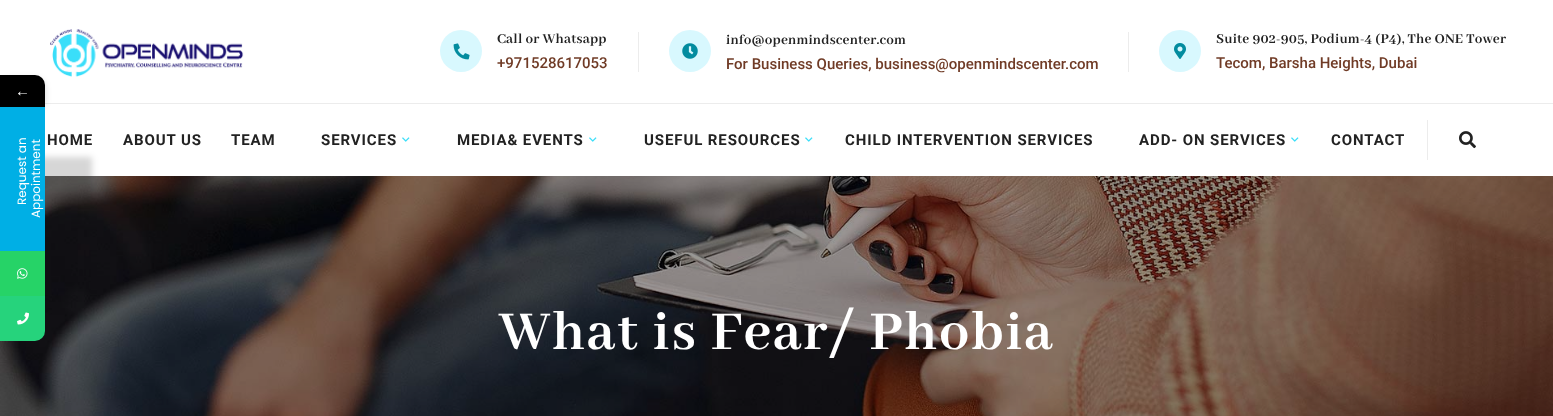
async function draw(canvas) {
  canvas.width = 1553
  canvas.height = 416
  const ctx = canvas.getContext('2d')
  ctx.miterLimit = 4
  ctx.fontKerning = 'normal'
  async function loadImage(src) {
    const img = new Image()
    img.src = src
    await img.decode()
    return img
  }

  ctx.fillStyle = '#fff'
  ctx.fillRect(0, 0, 1553, 416)
  ctx.fillStyle = '#ececec'
  ctx.fillRect(45, 103, 1508, 1)
  ctx.drawImage(await loadImage('image2.png'), 50, 29, 194, 48)
  ctx.fillStyle = '#00000029'
  ctx.filter = 'blur(3px)'
  ctx.beginPath()
  ctx.roundRect(0, 78, 45, 32, 10)
  ctx.fill()
  ctx.filter = 'none'
  ctx.fillStyle = '#000'
  ctx.beginPath()
  ctx.roundRect(0, 75, 45, 32, [0, 10, 0, 0])
  ctx.fill()
  ctx.font = '15px Liberation Serif'
  ctx.fillStyle = '#fff'
  ctx.fillText('←', 15, 96)
  ctx.drawImage(await loadImage('image8.png'), 0, 176, 1553, 240)
  ctx.fillStyle = '#00000029'
  ctx.filter = 'blur(3px)'
  ctx.beginPath()
  ctx.rect(-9, 157, 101, 45)
  ctx.fill()
  ctx.filter = 'none'
  ctx.fillStyle = '#00afe5'
  ctx.fillRect(0, 107, 45, 144)
  ctx.font = '12px Poppins'
  ctx.fillStyle = '#fff'
  ctx.save()
  ctx.translate(26, 205)
  ctx.rotate(-90 * Math.PI / 180)
  ctx.fillText('Request an', 0, 0)
  ctx.restore()
  ctx.save()
  ctx.translate(40, 218)
  ctx.rotate(-90 * Math.PI / 180)
  ctx.fillText('Appointment', 0, 0)
  ctx.restore()
  ctx.fillStyle = '#26d367'
  ctx.fillRect(0, 251, 45, 45)
  ctx.drawImage(await loadImage('image0.png'), 17, 268, 11, 11)
  ctx.fillStyle = '#26d37c'
  ctx.beginPath()
  ctx.roundRect(0, 296, 45, 45, [0, 0, 10, 0])
  ctx.fill()
  ctx.drawImage(await loadImage('image1.png'), 17, 312, 12, 13)
  ctx.fillStyle = '#d8f8fe'
  ctx.beginPath()
  ctx.arc(461, 51, 21, 0, 2 * Math.PI)
  ctx.fill()
  ctx.drawImage(await loadImage('image3.png'), 453, 43, 17, 17)
  ctx.letterSpacing = '0.15px'
  ctx.font = 'bold 15px Abhaya Libre'
  ctx.fillStyle = '#222'
  ctx.fillText('Call or Whatsapp', 497, 43)
  ctx.letterSpacing = '0px'
  ctx.font = '500 15px Roboto'
  ctx.fillStyle = '#703b26'
  ctx.fillText('+971528617053', 497, 68)
  ctx.fillStyle = '#ececec'
  ctx.fillRect(638, 32, 1, 40)
  ctx.fillStyle = '#d8f8fe'
  ctx.beginPath()
  ctx.arc(690, 51, 21, 0, 2 * Math.PI)
  ctx.fill()
  ctx.drawImage(await loadImage('image4.png'), 682, 43, 16, 16)
  ctx.letterSpacing = '0.15px'
  ctx.font = 'bold 15px Abhaya Libre'
  ctx.fillStyle = '#222'
  ctx.fillText('info@openmindscenter.com', 726, 44)
  ctx.letterSpacing = '0px'
  ctx.font = '500 15px Roboto'
  ctx.fillStyle = '#703b26'
  ctx.fillText('For Business Queries, business@openmindscenter.com', 726, 69)
  ctx.fillStyle = '#ececec'
  ctx.fillRect(1128, 32, 1, 40)
  ctx.fillStyle = '#d8f8fe'
  ctx.beginPath()
  ctx.arc(1180, 51, 21, 0, 2 * Math.PI)
  ctx.fill()
  ctx.drawImage(await loadImage('image5.png'), 1174, 43, 12, 16)
  ctx.letterSpacing = '0.15px'
  ctx.font = 'bold 15px Abhaya Libre'
  ctx.fillStyle = '#222'
  ctx.fillText('Suite 902-905, Podium-4 (P4), The ONE Tower', 1216, 43)
  ctx.letterSpacing = '0px'
  ctx.font = '500 15px Roboto'
  ctx.fillStyle = '#703b26'
  ctx.fillText('Tecom, Barsha Heights, Dubai', 1216, 68)
  ctx.letterSpacing = '0.9px'
  ctx.font = 'bold 15px Roboto'
  ctx.fillStyle = '#222'
  ctx.fillText('HOME', 47, 145)
  ctx.fillText('ABOUT US', 123, 145)
  ctx.fillText('TEAM', 231, 145)
  ctx.fillText('SERVICES', 321, 145)
  ctx.drawImage(await loadImage('image6.png'), 402, 137, 8, 5)
  ctx.fillText('MEDIA& EVENTS', 457, 145)
  ctx.drawImage(await loadImage('image6.png'), 589, 137, 8, 5)
  ctx.fillText('USEFUL RESOURCES', 644, 145)
  ctx.drawImage(await loadImage('image6.png'), 805, 137, 8, 5)
  ctx.fillText('CHILD INTERVENTION SERVICES', 845, 145)
  ctx.fillText('ADD- ON SERVICES', 1139, 145)
  ctx.drawImage(await loadImage('image6.png'), 1291, 137, 8, 5)
  ctx.fillText('CONTACT', 1331, 145)
  ctx.fillStyle = '#ececec'
  ctx.fillRect(1427, 120, 1, 40)
  ctx.drawImage(await loadImage('image7.png'), 1459, 131, 17, 18)
  ctx.letterSpacing = '1.8px'
  ctx.font = 'bold 60px Abhaya Libre'
  ctx.fillStyle = '#fff'
  ctx.fillText('What is Fear/ Phobia', 499, 349)
}

draw(document.querySelector('canvas'))
